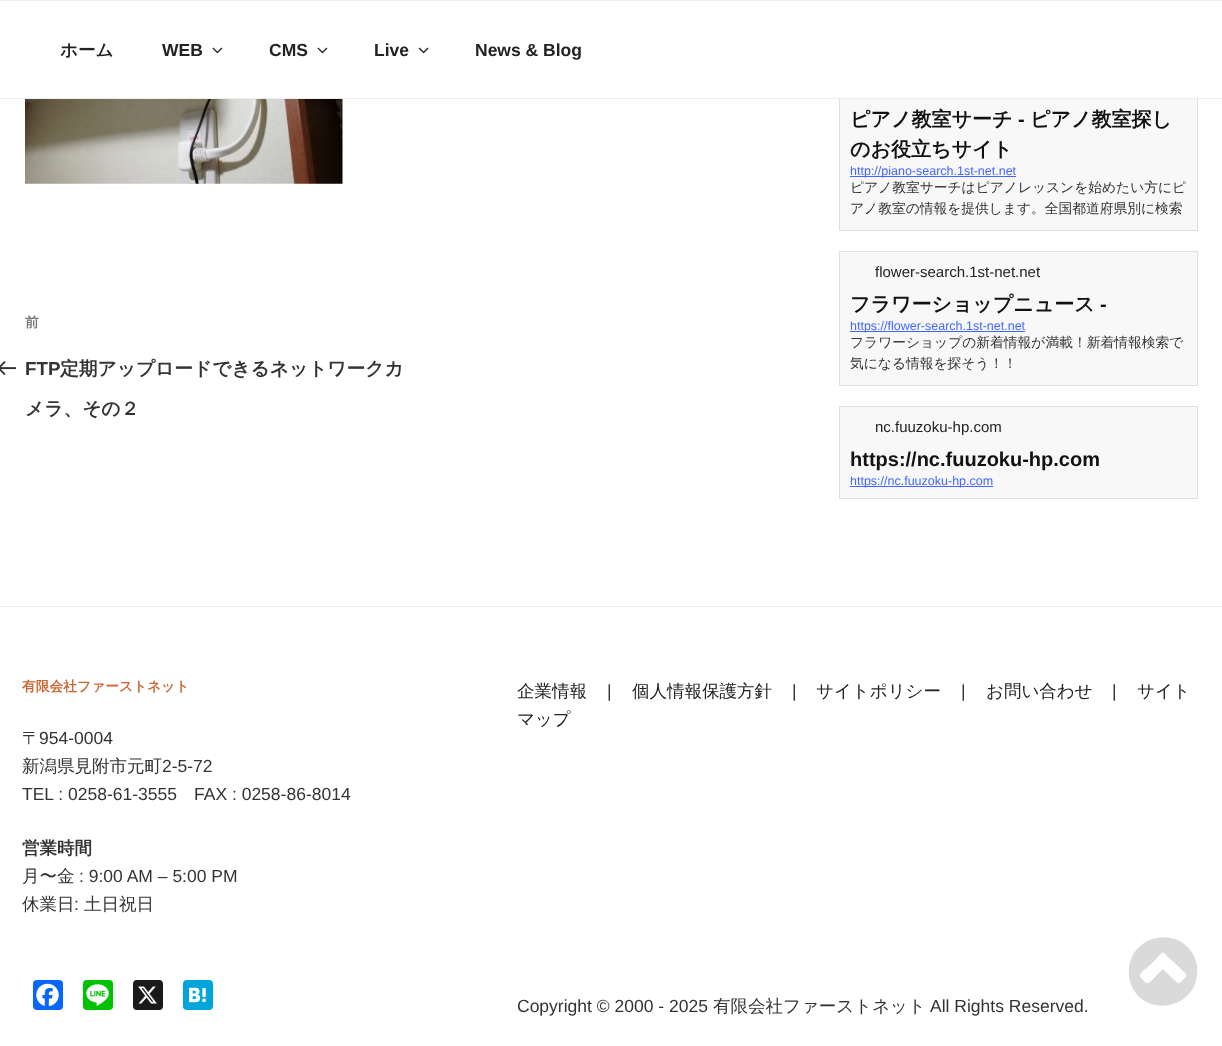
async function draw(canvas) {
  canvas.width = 1222
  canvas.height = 1046
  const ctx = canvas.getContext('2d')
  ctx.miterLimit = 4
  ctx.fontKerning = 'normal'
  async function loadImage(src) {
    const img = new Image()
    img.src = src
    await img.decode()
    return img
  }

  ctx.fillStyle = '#fff'
  ctx.fillRect(0, 0, 1222, 1046)
  ctx.fillStyle = '#f8f8f8'
  ctx.fillRect(840, 99, 357, 131)
  ctx.strokeStyle = '#dfdfdf'
  ctx.strokeRect(839.5, 66.5, 358, 164)
  ctx.fillStyle = '#fff'
  ctx.fillRect(839, 66, 359, 32)
  ctx.fillStyle = '#eee'
  ctx.fillRect(0, 0, 1222, 1)
  ctx.fillRect(0, 98, 1222, 1)
  ctx.font = 'bold 17.5px WenQuanYi Zen Hei'
  ctx.fillStyle = '#222'
  ctx.fillText('ホーム', 60, 56)
  ctx.font = 'bold 17.5px Liberation Sans'
  ctx.fillText('WEB', 162, 56)
  ctx.drawImage(await loadImage('image0.png'), 212, 47, 11, 7)
  ctx.fillText('CMS', 269, 56)
  ctx.drawImage(await loadImage('image0.png'), 317, 47, 11, 7)
  ctx.fillText('Live', 374, 56)
  ctx.drawImage(await loadImage('image1.png'), 418, 47, 11, 7)
  ctx.fillText('News & Blog', 475, 56)
  ctx.drawImage(await loadImage('image2.png'), 25, 99, 318, 85)
  ctx.font = 'bold 13.75px WenQuanYi Zen Hei'
  ctx.fillStyle = '#767676'
  ctx.fillText('前', 25, 327)
  ctx.drawImage(await loadImage('image3.png'), 0, 361, 16, 14)
  ctx.font = 'bold 18.75px Liberation Sans'
  ctx.fillStyle = '#333'
  ctx.fillText('FTP', 25, 375)
  ctx.font = 'bold 18.75px WenQuanYi Zen Hei'
  ctx.fillText('定期アップロードできるネットワークカ', 60, 375)
  ctx.fillText('メラ、その２', 25, 415)
  ctx.font = 'bold 20px WenQuanYi Zen Hei'
  ctx.fillStyle = '#111'
  ctx.fillText('ピアノ教室サーチ', 850, 126)
  ctx.font = 'bold 20px Liberation Sans'
  ctx.fillText('-', 1018, 126)
  ctx.font = 'bold 20px WenQuanYi Zen Hei'
  ctx.fillText('ピアノ教室探し', 1030, 126)
  ctx.fillText('のお役立ちサイト', 850, 156)
  ctx.fillStyle = '#46f'
  ctx.fillRect(850, 176, 166, 1)
  ctx.save()
  ctx.beginPath()
  ctx.roundRect(850, 165, 336, 13, 5)
  ctx.clip()
  ctx.font = '12.5px Liberation Sans'
  ctx.fillText('http://piano-search.1st-net.net', 850, 175)
  ctx.restore()
  ctx.font = '500 13.75px WenQuanYi Zen Hei'
  ctx.fillStyle = '#333'
  ctx.fillText('ピアノ教室サーチはピアノレッスンを始めたい方にピ', 850, 192)
  ctx.fillText('アノ教室の情報を提供します。全国都道府県別に検索', 850, 213)
  ctx.fillStyle = '#f8f8f8'
  ctx.beginPath()
  ctx.rect(839.5, 251.5, 358, 134)
  ctx.fill()
  ctx.stroke()
  ctx.font = '15px Liberation Sans'
  ctx.fillStyle = '#222'
  ctx.fillText('flower-search.1st-net.net', 875, 277)
  ctx.font = 'bold 20px WenQuanYi Zen Hei'
  ctx.fillStyle = '#111'
  ctx.fillText('フラワーショップニュース', 850, 311)
  ctx.font = 'bold 20px Liberation Sans'
  ctx.fillText('-', 1100, 311)
  ctx.fillStyle = '#46f'
  ctx.fillRect(850, 331, 175, 1)
  ctx.save()
  ctx.beginPath()
  ctx.roundRect(850, 320, 336, 13, 5)
  ctx.clip()
  ctx.font = '12.5px Liberation Sans'
  ctx.fillText('https://flower-search.1st-net.net', 850, 330)
  ctx.restore()
  ctx.font = '500 13.75px WenQuanYi Zen Hei'
  ctx.fillStyle = '#333'
  ctx.fillText('フラワーショップの新着情報が満載！新着情報検索で', 850, 347)
  ctx.fillText('気になる情報を探そう！！', 850, 368)
  ctx.fillStyle = '#f8f8f8'
  ctx.beginPath()
  ctx.rect(839.5, 406.5, 358, 92)
  ctx.fill()
  ctx.stroke()
  ctx.font = '15px Liberation Sans'
  ctx.fillStyle = '#222'
  ctx.fillText('nc.fuuzoku-hp.com', 875, 432)
  ctx.font = 'bold 20px Liberation Sans'
  ctx.fillStyle = '#111'
  ctx.fillText('https://nc.fuuzoku-hp.com', 850, 466)
  ctx.fillStyle = '#46f'
  ctx.fillRect(850, 486, 143, 1)
  ctx.save()
  ctx.beginPath()
  ctx.roundRect(850, 475, 336, 13, 5)
  ctx.clip()
  ctx.font = '12.5px Liberation Sans'
  ctx.fillText('https://nc.fuuzoku-hp.com', 850, 485)
  ctx.restore()
  ctx.fillStyle = '#eee'
  ctx.fillRect(0, 606, 1222, 1)
  ctx.font = 'bold 13.75px WenQuanYi Zen Hei'
  ctx.fillStyle = '#c63'
  ctx.fillText('有限会社ファーストネット', 22, 691)
  ctx.font = '500 17.5px WenQuanYi Zen Hei'
  ctx.fillStyle = '#333'
  ctx.fillText('〒', 22, 744)
  ctx.font = '17.5px Liberation Sans'
  ctx.fillText('954-0004', 39, 744)
  ctx.font = '500 17.5px WenQuanYi Zen Hei'
  ctx.fillText('新潟県見附市元町', 22, 772)
  ctx.font = '17.5px Liberation Sans'
  ctx.fillText('2-5-72', 162, 772)
  ctx.fillText('TEL : 0258-61-3555', 22, 800)
  ctx.fillText('FAX : 0258-86-8014', 194, 800)
  ctx.font = 'bold 17.5px WenQuanYi Zen Hei'
  ctx.fillText('営業時間', 22, 854)
  ctx.font = '500 17.5px WenQuanYi Zen Hei'
  ctx.fillText('月〜金', 22, 882)
  ctx.font = '17.5px Liberation Sans'
  ctx.fillText(': 9:00 AM – 5:00 PM', 79, 882)
  ctx.font = '500 17.5px WenQuanYi Zen Hei'
  ctx.fillText('休業日', 22, 910)
  ctx.font = '17.5px Liberation Sans'
  ctx.fillText(':', 74, 910)
  ctx.font = '500 17.5px WenQuanYi Zen Hei'
  ctx.fillText('土日祝日', 84, 910)
  ctx.fillStyle = '#222'
  ctx.fillText('企業情報', 517, 697)
  ctx.font = '17.5px Liberation Sans'
  ctx.fillStyle = '#333'
  ctx.fillText('|', 607, 697)
  ctx.font = '500 17.5px WenQuanYi Zen Hei'
  ctx.fillStyle = '#222'
  ctx.fillText('個人情報保護方針', 632, 697)
  ctx.font = '17.5px Liberation Sans'
  ctx.fillStyle = '#333'
  ctx.fillText('|', 792, 697)
  ctx.font = '500 17.5px WenQuanYi Zen Hei'
  ctx.fillStyle = '#222'
  ctx.fillText('サイトポリシー', 816, 697)
  ctx.font = '17.5px Liberation Sans'
  ctx.fillStyle = '#333'
  ctx.fillText('|', 961, 697)
  ctx.font = '500 17.5px WenQuanYi Zen Hei'
  ctx.fillStyle = '#222'
  ctx.fillText('お問い合わせ', 986, 697)
  ctx.font = '17.5px Liberation Sans'
  ctx.fillStyle = '#333'
  ctx.fillText('|', 1112, 697)
  ctx.font = '500 17.5px WenQuanYi Zen Hei'
  ctx.fillStyle = '#222'
  ctx.fillText('サイト', 1137, 697)
  ctx.fillText('マップ', 517, 725)
  ctx.fillStyle = '#0866ff'
  ctx.beginPath()
  ctx.roundRect(33, 980, 30, 30, 4)
  ctx.fill()
  ctx.drawImage(await loadImage('image4.png'), 36, 983, 23, 24)
  ctx.fillStyle = '#00c300'
  ctx.beginPath()
  ctx.roundRect(83, 980, 30, 30, 4)
  ctx.fill()
  ctx.drawImage(await loadImage('image5.png'), 86, 984, 23, 22)
  ctx.fillStyle = '#1a1a1a'
  ctx.beginPath()
  ctx.roundRect(133, 980, 30, 30, 4)
  ctx.fill()
  ctx.drawImage(await loadImage('image6.png'), 138, 986, 19, 18)
  ctx.fillStyle = '#00a6db'
  ctx.beginPath()
  ctx.roundRect(183, 980, 30, 30, 4)
  ctx.fill()
  ctx.drawImage(await loadImage('image7.png'), 189, 987, 17, 16)
  ctx.font = '17.5px Liberation Sans'
  ctx.fillStyle = '#333'
  ctx.fillText('Copyright © 2000 - 2025', 517, 1012)
  ctx.font = '500 17.5px WenQuanYi Zen Hei'
  ctx.fillText('有限会社ファーストネット', 713, 1012)
  ctx.font = '17.5px Liberation Sans'
  ctx.fillText('All Rights Reserved.', 930, 1012)
  ctx.fillStyle = '#dadada'
  ctx.beginPath()
  ctx.moveTo(1181, 982)
  ctx.bezierCurveTo(1189, 974, 1188, 976, 1179, 967)
  ctx.lineTo(1168, 957)
  ctx.bezierCurveTo(1163, 951, 1163, 951, 1158, 957)
  ctx.lineTo(1148, 967)
  ctx.bezierCurveTo(1143, 971, 1137, 974, 1142, 979)
  ctx.bezierCurveTo(1147, 984, 1147, 985, 1152, 980)
  ctx.lineTo(1163, 969)
  ctx.lineTo(1172, 978)
  ctx.bezierCurveTo(1174, 979, 1178, 985, 1181, 982)
  ctx.closePath()
  ctx.moveTo(1193, 954)
  ctx.bezierCurveTo(1196, 960, 1198, 967, 1197, 974)
  ctx.bezierCurveTo(1195, 1007, 1150, 1018, 1133, 989)
  ctx.bezierCurveTo(1130, 983, 1128, 976, 1129, 969)
  ctx.bezierCurveTo(1131, 936, 1176, 925, 1193, 954)
  ctx.closePath()
  ctx.fill()
}

draw(document.querySelector('canvas'))
